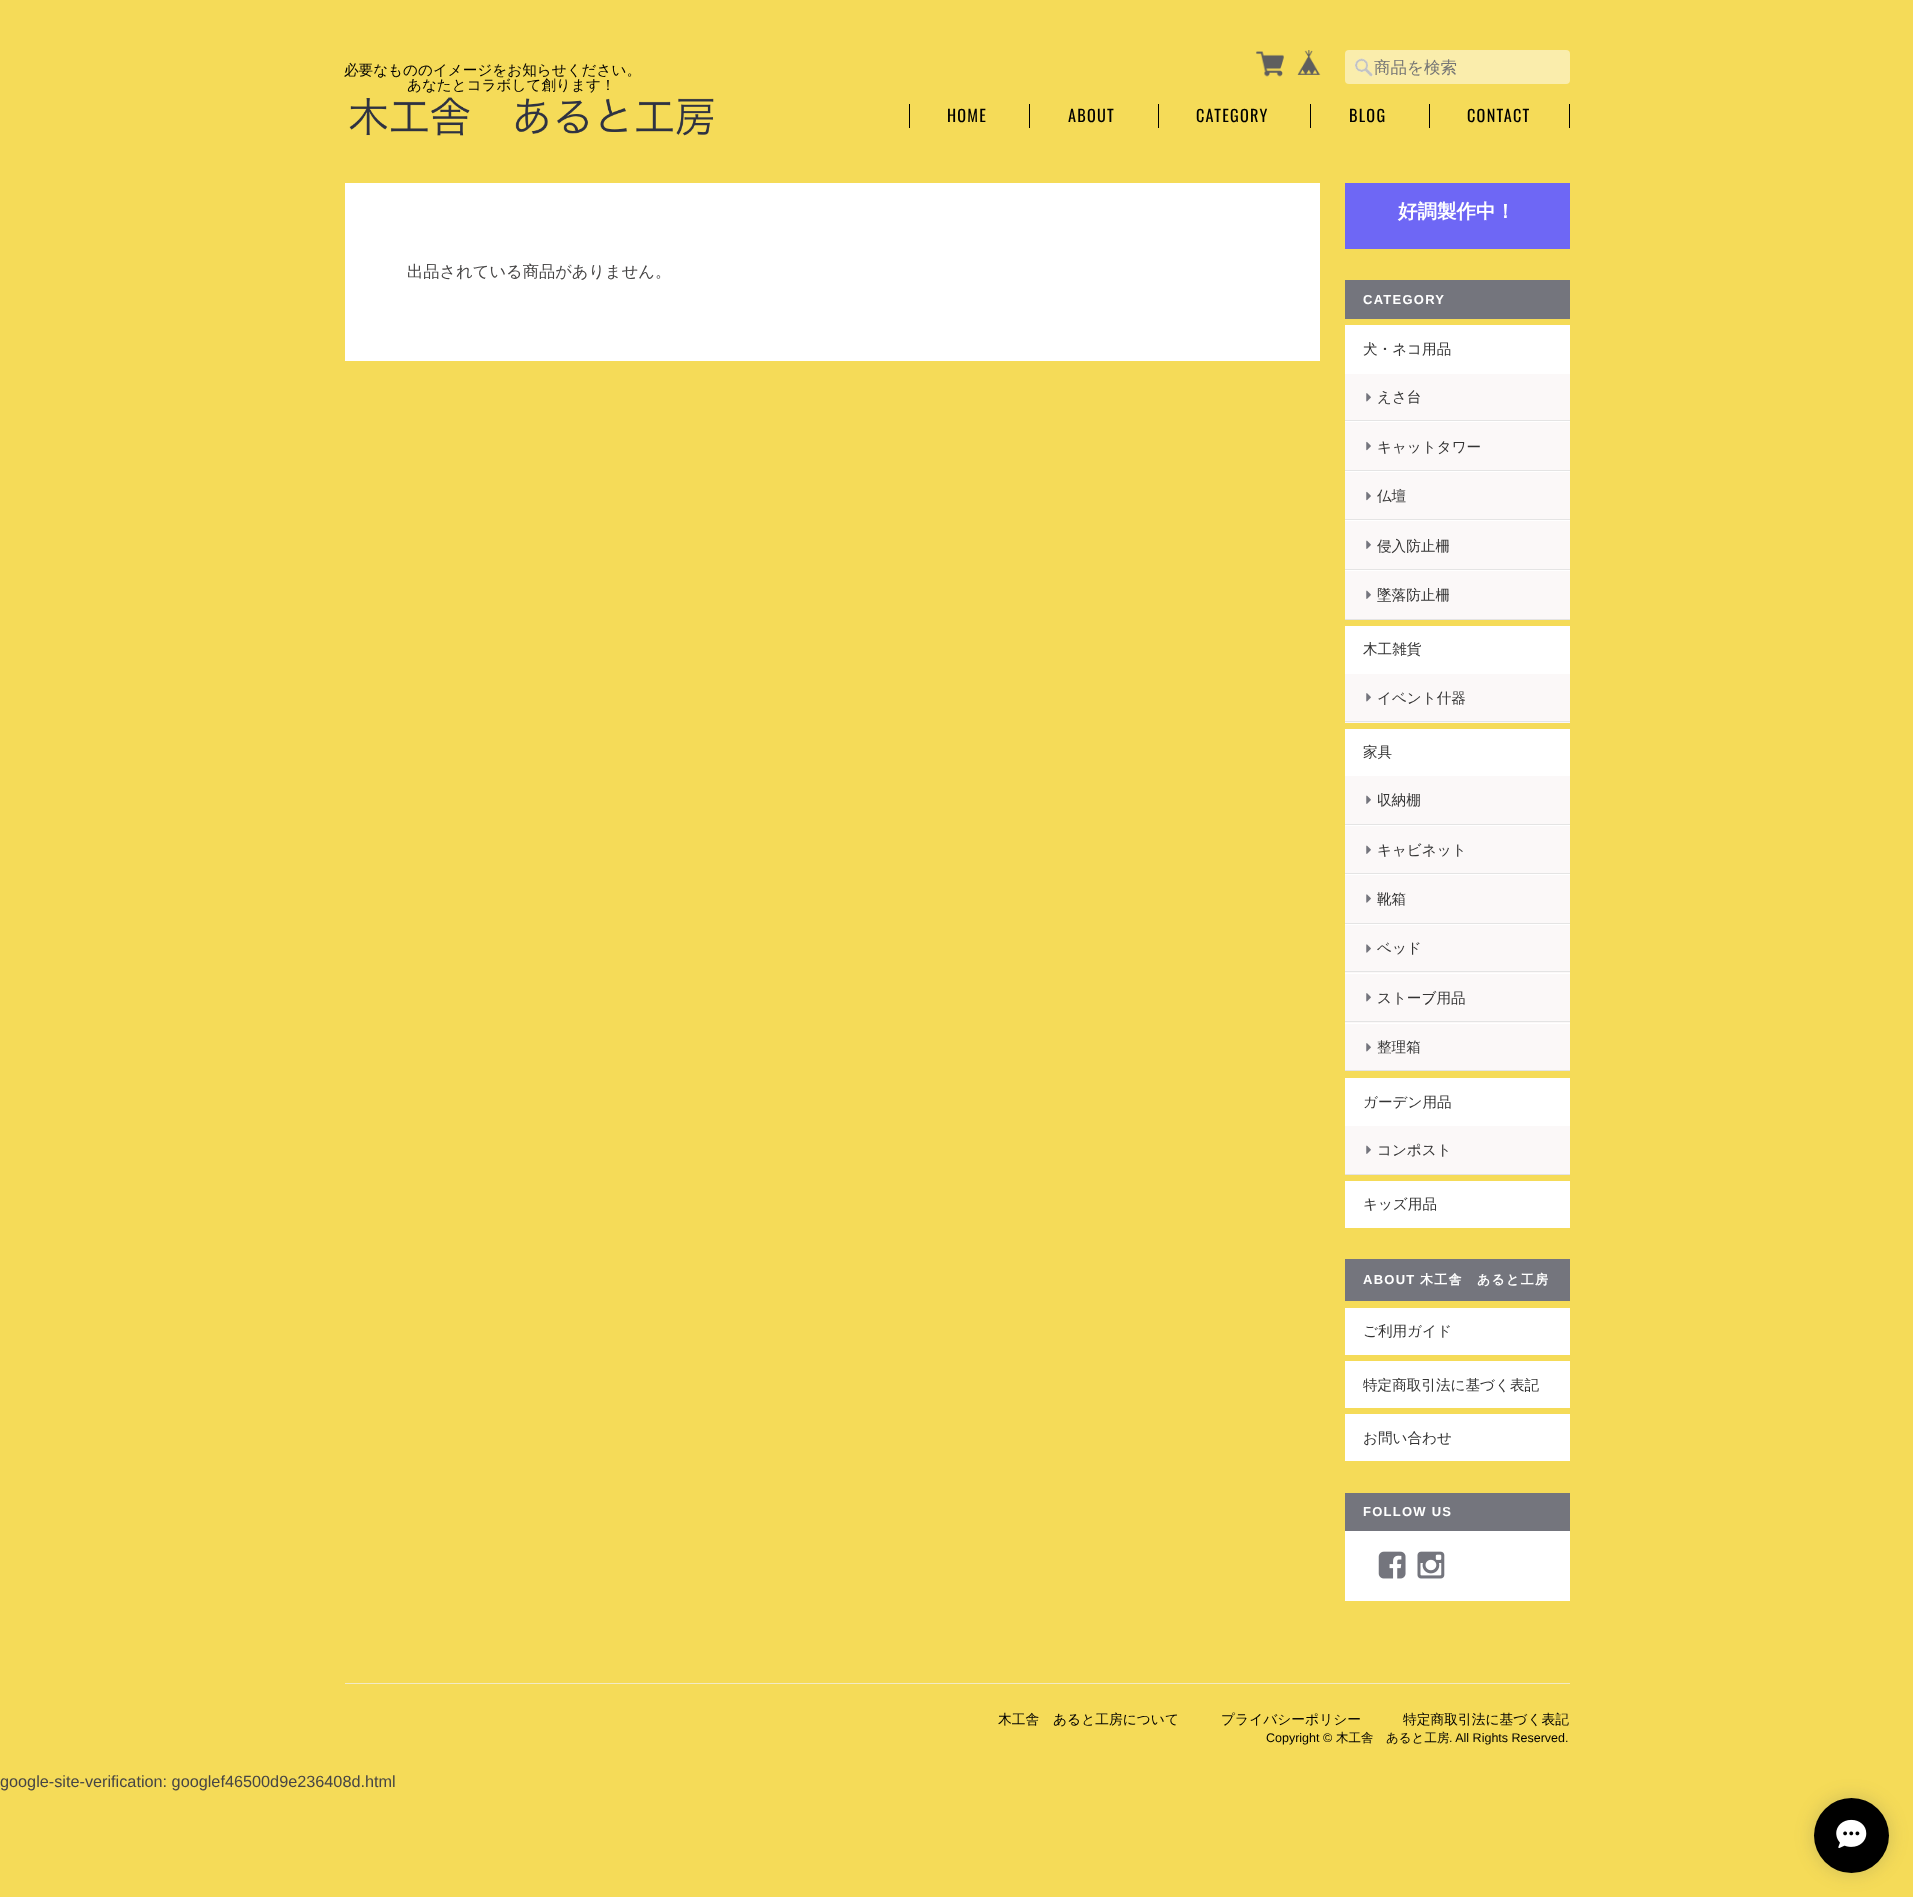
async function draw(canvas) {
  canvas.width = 1913
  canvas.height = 1897
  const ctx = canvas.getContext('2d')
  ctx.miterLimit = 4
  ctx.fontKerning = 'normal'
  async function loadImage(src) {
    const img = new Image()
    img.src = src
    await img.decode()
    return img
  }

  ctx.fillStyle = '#f5db58'
  ctx.fillRect(0, 0, 1913, 1897)
  ctx.font = '500 14.6px WenQuanYi Zen Hei'
  ctx.fillStyle = '#000'
  ctx.fillText('必要なもののイメージをお知らせください。', 344, 75)
  ctx.fillText('あなたとコラボして創ります！', 407, 90)
  ctx.drawImage(await loadImage('image0.png'), 349, 97, 365, 39)
  ctx.drawImage(await loadImage('image1.png'), 1256, 51, 28, 26)
  ctx.drawImage(await loadImage('image2.png'), 1297, 50, 24, 25)
  ctx.fillStyle = '#faedac'
  ctx.beginPath()
  ctx.roundRect(1345, 50, 225, 34, 4)
  ctx.fill()
  ctx.drawImage(await loadImage('image3.png'), 1355, 58, 18, 19)
  ctx.font = '500 16.5px WenQuanYi Zen Hei'
  ctx.fillStyle = '#757575'
  ctx.fillText('商品を検索', 1374, 73)
  ctx.fillStyle = '#000'
  ctx.fillRect(909, 104, 1, 24)
  ctx.letterSpacing = '1.25px'
  ctx.font = '16.25px Oswald'
  ctx.fillText('HOME', 947, 122)
  ctx.fillRect(1029, 104, 1, 24)
  ctx.fillText('ABOUT', 1068, 122)
  ctx.fillRect(1158, 104, 1, 24)
  ctx.fillText('CATEGORY', 1196, 122)
  ctx.fillRect(1310, 104, 1, 24)
  ctx.fillText('BLOG', 1349, 122)
  ctx.fillRect(1569, 104, 1, 24)
  ctx.fillRect(1429, 104, 1, 24)
  ctx.fillText('CONTACT', 1467, 122)
  ctx.fillStyle = '#fff'
  ctx.fillRect(345, 183, 975, 178)
  ctx.letterSpacing = '0px'
  ctx.font = '500 16.25px WenQuanYi Zen Hei'
  ctx.fillStyle = '#464545'
  ctx.fillText('出品されている商品がありません。', 407, 277)
  ctx.fillStyle = '#6e67f5'
  ctx.fillRect(1345, 183, 225, 66)
  ctx.font = 'bold 19.5px WenQuanYi Zen Hei'
  ctx.fillStyle = '#fff'
  ctx.fillText('好調製作中！', 1398, 218)
  ctx.fillStyle = '#74757d'
  ctx.fillRect(1345, 280, 225, 39)
  ctx.letterSpacing = '1.25px'
  ctx.font = 'bold 13px Liberation Sans'
  ctx.fillStyle = '#fff'
  ctx.fillText('CATEGORY', 1363, 304)
  ctx.fillRect(1345, 325, 225, 49)
  ctx.letterSpacing = '0px'
  ctx.font = '500 14.6px WenQuanYi Zen Hei'
  ctx.fillStyle = '#333'
  ctx.fillText('犬・ネコ用品', 1363, 354)
  ctx.fillStyle = '#fbf8f8'
  ctx.fillRect(1345, 374, 225, 46)
  ctx.fillStyle = '#e4e4e4'
  ctx.fillRect(1345, 420, 225, 1)
  ctx.drawImage(await loadImage('image4.png'), 1366, 393, 5, 9)
  ctx.fillStyle = '#333'
  ctx.fillText('えさ台', 1377, 402)
  ctx.fillStyle = '#fbf8f8'
  ctx.fillRect(1345, 422, 225, 48)
  ctx.fillStyle = '#fff'
  ctx.fillRect(1345, 421, 225, 1)
  ctx.fillStyle = '#e4e4e4'
  ctx.fillRect(1345, 470, 225, 1)
  ctx.drawImage(await loadImage('image5.png'), 1366, 441, 5, 10)
  ctx.fillStyle = '#333'
  ctx.fillText('キャットタワー', 1377, 452)
  ctx.fillStyle = '#fbf8f8'
  ctx.fillRect(1345, 472, 225, 47)
  ctx.fillStyle = '#fff'
  ctx.fillRect(1345, 471, 225, 1)
  ctx.fillStyle = '#e4e4e4'
  ctx.fillRect(1345, 519, 225, 1)
  ctx.drawImage(await loadImage('image5.png'), 1366, 491, 5, 10)
  ctx.fillStyle = '#333'
  ctx.fillText('仏壇', 1377, 501)
  ctx.fillStyle = '#fbf8f8'
  ctx.fillRect(1345, 521, 225, 48)
  ctx.fillStyle = '#fff'
  ctx.fillRect(1345, 520, 225, 1)
  ctx.fillStyle = '#e4e4e4'
  ctx.fillRect(1345, 569, 225, 1)
  ctx.drawImage(await loadImage('image6.png'), 1366, 540, 5, 9)
  ctx.fillStyle = '#333'
  ctx.fillText('侵入防止柵', 1377, 551)
  ctx.fillStyle = '#fbf8f8'
  ctx.fillRect(1345, 571, 225, 48)
  ctx.fillStyle = '#fff'
  ctx.fillRect(1345, 570, 225, 1)
  ctx.fillStyle = '#e4e4e4'
  ctx.fillRect(1345, 619, 225, 1)
  ctx.drawImage(await loadImage('image6.png'), 1366, 590, 5, 9)
  ctx.fillStyle = '#333'
  ctx.fillText('墜落防止柵', 1377, 600)
  ctx.fillStyle = '#fff'
  ctx.fillRect(1345, 626, 225, 48)
  ctx.fillStyle = '#333'
  ctx.fillText('木工雑貨', 1363, 654)
  ctx.fillStyle = '#fbf8f8'
  ctx.fillRect(1345, 674, 225, 49)
  ctx.fillStyle = '#e4e4e4'
  ctx.fillRect(1345, 721, 225, 1)
  ctx.drawImage(await loadImage('image4.png'), 1366, 693, 5, 9)
  ctx.fillStyle = '#333'
  ctx.fillText('イベント什器', 1377, 703)
  ctx.fillStyle = '#fff'
  ctx.fillRect(1345, 729, 225, 47)
  ctx.fillStyle = '#333'
  ctx.fillText('家具', 1363, 757)
  ctx.fillStyle = '#fbf8f8'
  ctx.fillRect(1345, 776, 225, 48)
  ctx.fillStyle = '#e4e4e4'
  ctx.fillRect(1345, 824, 225, 1)
  ctx.drawImage(await loadImage('image6.png'), 1366, 795, 5, 9)
  ctx.fillStyle = '#333'
  ctx.fillText('収納棚', 1377, 805)
  ctx.fillStyle = '#fbf8f8'
  ctx.fillRect(1345, 826, 225, 47)
  ctx.fillStyle = '#fff'
  ctx.fillRect(1345, 825, 225, 1)
  ctx.fillStyle = '#e4e4e4'
  ctx.fillRect(1345, 873, 225, 1)
  ctx.drawImage(await loadImage('image6.png'), 1366, 845, 5, 9)
  ctx.fillStyle = '#333'
  ctx.fillText('キャビネット', 1377, 855)
  ctx.fillStyle = '#fbf8f8'
  ctx.fillRect(1345, 875, 225, 48)
  ctx.fillStyle = '#fff'
  ctx.fillRect(1345, 874, 225, 1)
  ctx.fillStyle = '#e4e4e4'
  ctx.fillRect(1345, 923, 225, 1)
  ctx.drawImage(await loadImage('image7.png'), 1366, 894, 5, 9)
  ctx.fillStyle = '#333'
  ctx.fillText('靴箱', 1377, 904)
  ctx.fillStyle = '#fbf8f8'
  ctx.fillRect(1345, 925, 225, 48)
  ctx.fillStyle = '#fff'
  ctx.fillRect(1345, 924, 225, 1)
  ctx.fillStyle = '#e4e4e4'
  ctx.fillRect(1345, 971, 225, 1)
  ctx.drawImage(await loadImage('image7.png'), 1366, 944, 5, 9)
  ctx.fillStyle = '#333'
  ctx.fillText('ベッド', 1377, 953)
  ctx.fillStyle = '#fbf8f8'
  ctx.fillRect(1345, 974, 225, 49)
  ctx.fillStyle = '#fff'
  ctx.fillRect(1345, 973, 225, 1)
  ctx.fillStyle = '#e4e4e4'
  ctx.fillRect(1345, 1021, 225, 1)
  ctx.drawImage(await loadImage('image4.png'), 1366, 993, 5, 9)
  ctx.fillStyle = '#333'
  ctx.fillText('ストーブ用品', 1377, 1003)
  ctx.fillStyle = '#fbf8f8'
  ctx.fillRect(1345, 1024, 225, 46)
  ctx.fillStyle = '#fff'
  ctx.fillRect(1345, 1023, 225, 1)
  ctx.fillStyle = '#e4e4e4'
  ctx.fillRect(1345, 1070, 225, 1)
  ctx.drawImage(await loadImage('image4.png'), 1366, 1043, 5, 9)
  ctx.fillStyle = '#333'
  ctx.fillText('整理箱', 1377, 1052)
  ctx.fillStyle = '#fff'
  ctx.fillRect(1345, 1078, 225, 48)
  ctx.fillStyle = '#333'
  ctx.fillText('ガーデン用品', 1363, 1107)
  ctx.fillStyle = '#fbf8f8'
  ctx.fillRect(1345, 1126, 225, 48)
  ctx.fillStyle = '#e4e4e4'
  ctx.fillRect(1345, 1174, 225, 1)
  ctx.drawImage(await loadImage('image6.png'), 1366, 1145, 5, 9)
  ctx.fillStyle = '#333'
  ctx.fillText('コンポスト', 1377, 1155)
  ctx.fillStyle = '#fff'
  ctx.fillRect(1345, 1181, 225, 47)
  ctx.fillStyle = '#333'
  ctx.fillText('キッズ用品', 1363, 1209)
  ctx.fillStyle = '#74757d'
  ctx.fillRect(1345, 1259, 225, 42)
  ctx.letterSpacing = '1.25px'
  ctx.font = 'bold 13px Liberation Sans'
  ctx.fillStyle = '#fff'
  ctx.fillText('ABOUT', 1363, 1284)
  ctx.font = 'bold 13px WenQuanYi Zen Hei'
  ctx.fillText('木工舎　あると工房', 1420, 1284)
  ctx.fillRect(1345, 1308, 225, 47)
  ctx.letterSpacing = '0px'
  ctx.font = '500 14.6px WenQuanYi Zen Hei'
  ctx.fillStyle = '#333'
  ctx.fillText('ご利用ガイド', 1363, 1336)
  ctx.fillStyle = '#fff'
  ctx.fillRect(1345, 1361, 225, 47)
  ctx.fillStyle = '#333'
  ctx.fillText('特定商取引法に基づく表記', 1363, 1390)
  ctx.fillStyle = '#fff'
  ctx.fillRect(1345, 1414, 225, 47)
  ctx.fillStyle = '#333'
  ctx.fillText('お問い合わせ', 1363, 1443)
  ctx.fillStyle = '#fff'
  ctx.fillRect(1345, 1531, 225, 70)
  ctx.fillStyle = '#74757d'
  ctx.fillRect(1345, 1493, 225, 38)
  ctx.letterSpacing = '1.25px'
  ctx.font = 'bold 13px Liberation Sans'
  ctx.fillStyle = '#fff'
  ctx.fillText('FOLLOW US', 1363, 1516)
  ctx.drawImage(await loadImage('image8.png'), 1378, 1551, 28, 28)
  ctx.drawImage(await loadImage('image9.png'), 1417, 1551, 28, 28)
  ctx.fillStyle = '#f1eac8'
  ctx.fillRect(345, 1683, 1225, 1)
  ctx.letterSpacing = '0px'
  ctx.font = '500 13.75px WenQuanYi Zen Hei'
  ctx.fillStyle = '#000'
  ctx.fillText('木工舎　あると工房について', 998, 1724)
  ctx.fillText('プライバシーポリシー', 1221, 1724)
  ctx.fillText('特定商取引法に基づく表記', 1403, 1724)
  ctx.font = '12.5px Liberation Sans'
  ctx.fillText('Copyright ©', 1266, 1742)
  ctx.font = '500 12.5px WenQuanYi Zen Hei'
  ctx.fillText('木工舎　あると工房', 1336, 1742)
  ctx.font = '12.5px Liberation Sans'
  ctx.fillText('. All Rights Reserved.', 1449, 1742)
  ctx.font = '16.25px Liberation Sans'
  ctx.fillStyle = '#464545'
  ctx.fillText('google-site-verification: googlef46500d9e236408d.html', 0, 1787)
  ctx.fillStyle = '#33425833'
  ctx.filter = 'blur(9.5px)'
  ctx.beginPath()
  ctx.roundRect(1814, 1798, 75, 75, 37.5)
  ctx.fill()
  ctx.filter = 'none'
  ctx.fillStyle = '#000'
  ctx.beginPath()
  ctx.arc(1851.5, 1835.5, 37.5, 0, 2 * Math.PI)
  ctx.fill()
  ctx.drawImage(await loadImage('image10.png'), 1836, 1819, 31, 30)
}

draw(document.querySelector('canvas'))
